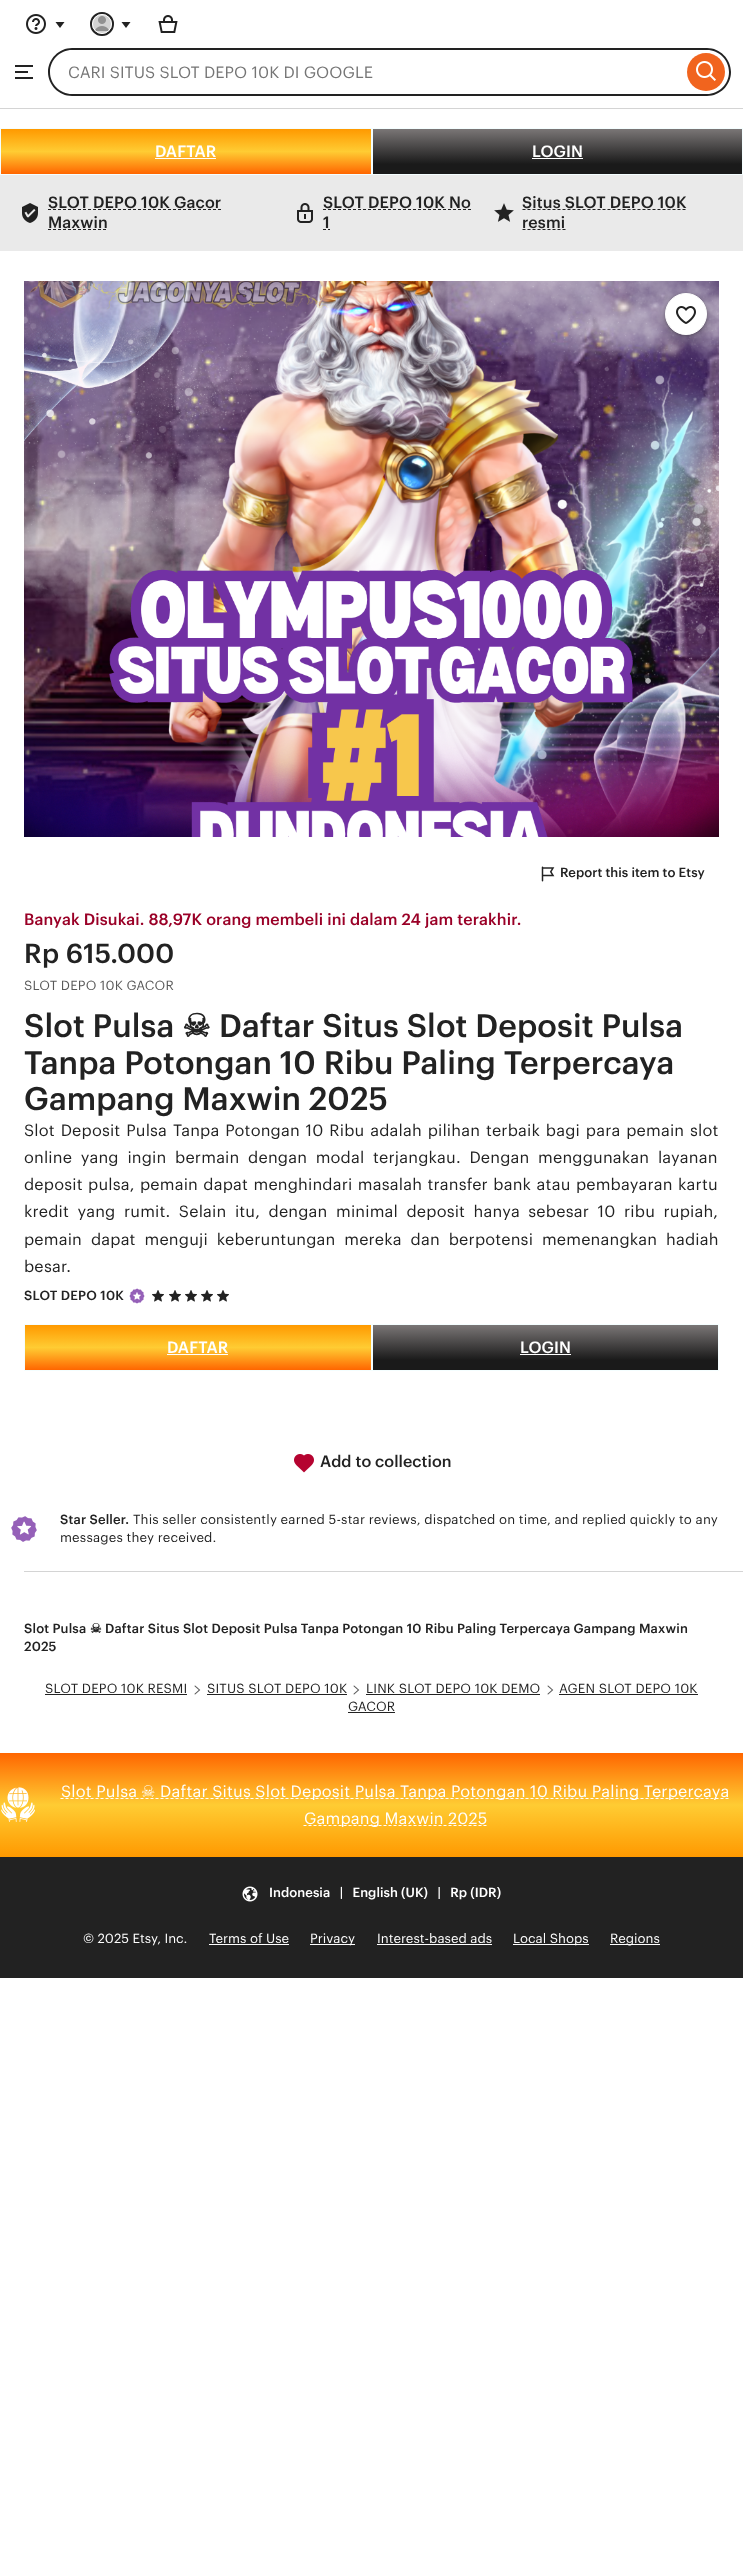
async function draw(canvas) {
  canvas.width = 743
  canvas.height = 2572
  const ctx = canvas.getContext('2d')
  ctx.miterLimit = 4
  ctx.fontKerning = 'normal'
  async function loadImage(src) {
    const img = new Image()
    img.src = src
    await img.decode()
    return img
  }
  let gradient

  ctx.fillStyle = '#fff'
  ctx.fillRect(0, 0, 743, 2572)
  ctx.fillStyle = '#d4d4d4'
  ctx.fillRect(0, 108, 743, 1)
  ctx.drawImage(await loadImage('image0.png'), 26, 14, 20, 20)
  ctx.fillStyle = '#222'
  ctx.beginPath()
  ctx.moveTo(64.5, 22)
  ctx.lineTo(60, 28)
  ctx.lineTo(55.5, 22)
  ctx.closePath()
  ctx.fill()
  ctx.drawImage(await loadImage('image1.png'), 90, 12, 24, 24)
  ctx.beginPath()
  ctx.arc(102, 24, 11, 0, 2 * Math.PI)
  ctx.strokeStyle = '#222'
  ctx.lineWidth = 2
  ctx.stroke()
  ctx.beginPath()
  ctx.arc(102, 24, 9.5, 0, 2 * Math.PI)
  ctx.strokeStyle = '#fff'
  ctx.lineWidth = 1
  ctx.stroke()
  ctx.beginPath()
  ctx.moveTo(130.5, 22)
  ctx.lineTo(126, 28)
  ctx.lineTo(121.5, 22)
  ctx.closePath()
  ctx.fill()
  ctx.drawImage(await loadImage('image2.png'), 158, 15, 20, 18)
  ctx.drawImage(await loadImage('image3.png'), 15, 65, 18, 14)
  ctx.beginPath()
  ctx.moveTo(72, 48)
  ctx.lineTo(682, 48)
  ctx.lineTo(682, 96)
  ctx.lineTo(72, 96)
  ctx.bezierCurveTo(59, 96, 48, 85, 48, 72)
  ctx.bezierCurveTo(48, 59, 59, 48, 72, 48)
  ctx.closePath()
  ctx.moveTo(72, 50)
  ctx.lineTo(682, 50)
  ctx.lineTo(682, 94)
  ctx.lineTo(72, 94)
  ctx.bezierCurveTo(60, 94, 50, 84, 50, 72)
  ctx.bezierCurveTo(50, 60, 60, 50, 72, 50)
  ctx.closePath()
  ctx.fill('evenodd')
  ctx.font = '16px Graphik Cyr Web'
  ctx.fillStyle = '#757575'
  ctx.fillText('CARI SITUS SLOT DEPO 10K DI GOOGLE', 68, 78)
  ctx.fillStyle = '#222'
  ctx.beginPath()
  ctx.moveTo(682, 48)
  ctx.lineTo(707, 48)
  ctx.bezierCurveTo(720, 48, 731, 59, 731, 72)
  ctx.bezierCurveTo(731, 85, 720, 96, 707, 96)
  ctx.lineTo(682, 96)
  ctx.closePath()
  ctx.moveTo(682, 50)
  ctx.lineTo(707, 50)
  ctx.bezierCurveTo(719, 50, 729, 60, 729, 72)
  ctx.bezierCurveTo(729, 84, 719, 94, 707, 94)
  ctx.lineTo(682, 94)
  ctx.closePath()
  ctx.fill('evenodd')
  ctx.fillStyle = '#f1641e'
  ctx.beginPath()
  ctx.arc(706, 72, 19, 0, 2 * Math.PI)
  ctx.fill()
  ctx.drawImage(await loadImage('image4.png'), 696, 61, 20, 20)
  gradient = ctx.createLinearGradient(186, 129, 186, 174)
  gradient.addColorStop(0, '#f90')
  gradient.addColorStop(0.5, '#fc3')
  gradient.addColorStop(1, '#f60')
  ctx.fillStyle = gradient
  ctx.fillRect(1, 129, 370, 45)
  ctx.strokeStyle = '#f4feff'
  ctx.strokeRect(0.5, 128.5, 371, 46)
  ctx.font = '500 16px Graphik Cyr Web'
  ctx.fillStyle = '#fff'
  ctx.fillText('DAFTAR', 155, 157)
  ctx.fillRect(155, 158, 61, 1)
  gradient = ctx.createLinearGradient(558, 129, 558, 174)
  gradient.addColorStop(0, '#7a7676')
  gradient.addColorStop(0.78, '#1a1a1a')
  ctx.fillStyle = gradient
  ctx.fillRect(373, 129, 369, 45)
  ctx.strokeRect(372.5, 128.5, 370, 46)
  ctx.fillStyle = '#fff'
  ctx.fillText('LOGIN', 532, 157)
  ctx.fillRect(532, 158, 51, 1)
  ctx.fillStyle = '#eaeaea'
  ctx.fillRect(0, 175, 743, 76)
  ctx.drawImage(await loadImage('image5.png'), 22, 203, 16, 20)
  ctx.letterSpacing = '0.08px'
  ctx.fillStyle = '#222'
  ctx.fillText('SLOT DEPO 10K Gacor', 48, 208)
  ctx.beginPath()
  ctx.moveTo(48, 209.5)
  ctx.lineTo(221.5, 209.5)
  ctx.strokeStyle = '#222'
  ctx.setLineDash([3, 2])
  ctx.stroke()
  ctx.fillText('Maxwin', 48, 228)
  ctx.beginPath()
  ctx.moveTo(48, 229.5)
  ctx.lineTo(108, 229.5)
  ctx.stroke()
  ctx.drawImage(await loadImage('image6.png'), 297, 203, 16, 20)
  ctx.fillText('SLOT DEPO 10K No', 323, 208)
  ctx.beginPath()
  ctx.moveTo(323, 209.5)
  ctx.lineTo(471, 209.5)
  ctx.stroke()
  ctx.fillText('1', 323, 228)
  ctx.beginPath()
  ctx.moveTo(323, 229.5)
  ctx.lineTo(326, 229.5)
  ctx.moveTo(328, 229.5)
  ctx.lineTo(330, 229.5)
  ctx.setLineDash([])
  ctx.stroke()
  ctx.drawImage(await loadImage('image7.png'), 494, 203, 20, 19)
  ctx.fillText('Situs SLOT DEPO 10K', 522, 208)
  ctx.beginPath()
  ctx.moveTo(522.5, 209.5)
  ctx.lineTo(687, 209.5)
  ctx.setLineDash([3, 2])
  ctx.stroke()
  ctx.fillText('resmi', 522, 228)
  ctx.beginPath()
  ctx.moveTo(522.5, 229.5)
  ctx.lineTo(565.5, 229.5)
  ctx.stroke()
  ctx.drawImage(await loadImage('image8.png'), 24, 281, 695, 556)
  ctx.fillStyle = '#00000026'
  ctx.filter = 'blur(4px)'
  ctx.beginPath()
  ctx.roundRect(662, 294, 48, 48, 24)
  ctx.fill()
  ctx.filter = 'none'
  ctx.fillStyle = '#0000004d'
  ctx.filter = 'blur(1.5px)'
  ctx.beginPath()
  ctx.roundRect(665, 294, 42, 42, 21)
  ctx.fill()
  ctx.filter = 'none'
  ctx.fillStyle = '#fff'
  ctx.beginPath()
  ctx.arc(686, 314, 20.5, 0, 2 * Math.PI)
  ctx.fill()
  ctx.strokeStyle = '#fff'
  ctx.setLineDash([])
  ctx.stroke()
  ctx.drawImage(await loadImage('image9.png'), 676, 306, 20, 18)
  ctx.drawImage(await loadImage('image10.png'), 541, 866, 14, 16)
  ctx.letterSpacing = '0px'
  ctx.font = '500 13px Graphik Cyr Web'
  ctx.fillStyle = '#222'
  ctx.fillText('Report this item to Etsy', 560, 877)
  ctx.letterSpacing = '0.08px'
  ctx.font = '500 16px Graphik Cyr Web'
  ctx.fillStyle = '#9a0027'
  ctx.fillText('Banyak Disukai. 88,97K orang membeli ini dalam 24 jam terakhir.', 24, 925)
  ctx.letterSpacing = '0.1px'
  ctx.font = '500 27px Graphik Cyr Web'
  ctx.fillStyle = '#222'
  ctx.fillText('Rp 615.000', 24, 963)
  ctx.letterSpacing = '0.13px'
  ctx.font = '13px Graphik Cyr Web'
  ctx.fillStyle = '#595959'
  ctx.fillText('SLOT DEPO 10K GACOR', 24, 990)
  ctx.letterSpacing = '0px'
  ctx.font = '500 32px Graphik Cyr Web'
  ctx.fillStyle = '#222'
  ctx.fillText('Slot Pulsa', 24, 1037)
  ctx.font = 'bold 32px DejaVu Sans'
  ctx.fillText('☠︎︎', 182, 1037)
  ctx.font = '500 32px Graphik Cyr Web'
  ctx.fillText('Daftar Situs Slot Deposit Pulsa', 219, 1037)
  ctx.fillText('Tanpa Potongan 10 Ribu Paling Terpercaya', 24, 1074)
  ctx.fillText('Gampang Maxwin 2025', 24, 1110)
  ctx.letterSpacing = '0.15px'
  ctx.wordSpacing = '1.4px'
  ctx.font = '16px Graphik Cyr Web'
  ctx.fillText('Slot Deposit Pulsa Tanpa Potongan 10 Ribu adalah pilihan terbaik bagi para pemain slot', 24, 1136)
  ctx.wordSpacing = '4.25px'
  ctx.fillText('online yang ingin bermain dengan modal terjangkau. Dengan menggunakan layanan', 24, 1163)
  ctx.wordSpacing = '1px'
  ctx.fillText('deposit pulsa, pemain dapat menghindari masalah transfer bank atau pembayaran kartu', 24, 1190)
  ctx.wordSpacing = '4.1px'
  ctx.fillText('kredit yang rumit. Selain itu, dengan minimal deposit hanya sebesar 10 ribu rupiah,', 24, 1217)
  ctx.wordSpacing = '4.5px'
  ctx.fillText('pemain dapat menguji keberuntungan mereka dan berpotensi memenangkan hadiah', 24, 1245)
  ctx.wordSpacing = '0px'
  ctx.fillText('besar.', 24, 1272)
  ctx.letterSpacing = '0.13px'
  ctx.font = '500 13px Graphik Cyr Web'
  ctx.fillText('SLOT DEPO 10K', 24, 1300)
  ctx.drawImage(await loadImage('image11.png'), 129, 1288, 16, 16)
  ctx.drawImage(await loadImage('image12.png'), 152, 1290, 12, 12)
  ctx.drawImage(await loadImage('image12.png'), 169, 1290, 12, 12)
  ctx.drawImage(await loadImage('image12.png'), 185, 1290, 12, 12)
  ctx.drawImage(await loadImage('image12.png'), 201, 1290, 12, 12)
  ctx.drawImage(await loadImage('image12.png'), 217, 1290, 12, 12)
  gradient = ctx.createLinearGradient(198, 1325, 198, 1370)
  gradient.addColorStop(0, '#f90')
  gradient.addColorStop(0.5, '#fc3')
  gradient.addColorStop(1, '#f60')
  ctx.fillStyle = gradient
  ctx.fillRect(25, 1325, 346, 45)
  ctx.strokeStyle = '#f4feff'
  ctx.strokeRect(24.5, 1324.5, 347, 46)
  ctx.letterSpacing = '0px'
  ctx.font = '500 16px Graphik Cyr Web'
  ctx.fillStyle = '#fff'
  ctx.fillText('DAFTAR', 167, 1353)
  ctx.fillRect(167, 1354, 61, 1)
  gradient = ctx.createLinearGradient(546, 1325, 546, 1370)
  gradient.addColorStop(0, '#7a7676')
  gradient.addColorStop(0.78, '#1a1a1a')
  ctx.fillStyle = gradient
  ctx.fillRect(373, 1325, 345, 45)
  ctx.strokeRect(372.5, 1324.5, 346, 46)
  ctx.fillStyle = '#fff'
  ctx.fillText('LOGIN', 520, 1353)
  ctx.fillRect(520, 1354, 51, 1)
  ctx.drawImage(await loadImage('image13.png'), 294, 1454, 20, 19)
  ctx.fillStyle = '#222'
  ctx.fillText('Add to collection', 320, 1467)
  ctx.drawImage(await loadImage('image14.png'), 11, 1516, 26, 26)
  ctx.letterSpacing = '0.13px'
  ctx.font = '500 13px Graphik Cyr Web'
  ctx.fillText('Star Seller.', 60, 1524)
  ctx.font = '13px Graphik Cyr Web'
  ctx.fillText('This seller consistently earned 5-star reviews, dispatched on time, and replied quickly to any', 133, 1524)
  ctx.fillText('messages they received.', 60, 1542)
  ctx.fillStyle = '#d4d4d4'
  ctx.fillRect(24, 1571, 719, 1)
  ctx.font = '500 13px Graphik Cyr Web'
  ctx.fillStyle = '#222'
  ctx.fillText('Slot Pulsa', 24, 1633)
  ctx.font = 'bold 13px DejaVu Sans'
  ctx.fillText('☠︎︎', 90, 1633)
  ctx.font = '500 13px Graphik Cyr Web'
  ctx.fillText('Daftar Situs Slot Deposit Pulsa Tanpa Potongan 10 Ribu Paling Terpercaya Gampang Maxwin', 105, 1633)
  ctx.fillText('2025', 24, 1651)
  ctx.font = '13px Graphik Cyr Web'
  ctx.fillText('SLOT DEPO 10K RESMI', 45, 1693)
  ctx.fillRect(45, 1694, 142, 1)
  ctx.drawImage(await loadImage('image15.png'), 194, 1685, 7, 10)
  ctx.fillText('SITUS SLOT DEPO 10K', 207, 1693)
  ctx.fillRect(207, 1694, 140, 1)
  ctx.drawImage(await loadImage('image15.png'), 353, 1685, 7, 10)
  ctx.fillText('LINK SLOT DEPO 10K DEMO', 366, 1693)
  ctx.fillRect(366, 1694, 174, 1)
  ctx.drawImage(await loadImage('image15.png'), 547, 1685, 7, 10)
  ctx.fillText('AGEN SLOT DEPO 10K', 559, 1693)
  ctx.fillRect(559, 1694, 139, 1)
  ctx.fillText('GACOR', 348, 1711)
  ctx.fillRect(348, 1712, 47, 1)
  gradient = ctx.createLinearGradient(372, 1753, 372, 1857)
  gradient.addColorStop(0, '#f60')
  gradient.addColorStop(0.5, '#fc3')
  gradient.addColorStop(1, '#f90')
  ctx.fillStyle = gradient
  ctx.fillRect(0, 1753, 743, 104)
  ctx.drawImage(await loadImage('image16.png'), 1, 1787, 34, 35)
  ctx.letterSpacing = '0.15px'
  ctx.font = '16px Graphik Cyr Web'
  ctx.fillStyle = '#fff'
  ctx.fillText('Slot Pulsa', 61, 1797)
  ctx.font = '16px DejaVu Sans'
  ctx.fillText('☠︎︎', 141, 1797)
  ctx.beginPath()
  ctx.moveTo(60.5, 1798.5)
  ctx.lineTo(730.5, 1798.5)
  ctx.strokeStyle = '#fff'
  ctx.setLineDash([3, 2])
  ctx.stroke()
  ctx.font = '16px Graphik Cyr Web'
  ctx.fillText('Daftar Situs Slot Deposit Pulsa Tanpa Potongan 10 Ribu Paling Terpercaya', 160, 1797)
  ctx.beginPath()
  ctx.moveTo(303.5, 1825.5)
  ctx.lineTo(487.5, 1825.5)
  ctx.stroke()
  ctx.fillText('Gampang Maxwin 2025', 304, 1824)
  ctx.fillStyle = '#222'
  ctx.fillRect(0, 1857, 743, 121)
  ctx.drawImage(await loadImage('image17.png'), 242, 1886, 16, 16)
  ctx.letterSpacing = '0px'
  ctx.font = '500 13px Graphik Cyr Web'
  ctx.fillStyle = '#fff'
  ctx.fillText('Indonesia   |   English (UK)   |   Rp (IDR)', 269, 1897)
  ctx.font = '13px Graphik Cyr Web'
  ctx.fillText('© 2025 Etsy, Inc.', 83, 1943)
  ctx.fillText('Terms of Use', 209, 1943)
  ctx.fillRect(209, 1944, 80, 1)
  ctx.fillRect(310, 1944, 45, 1)
  ctx.fillText('Privacy', 310, 1943)
  ctx.fillText('Interest-based ads', 377, 1943)
  ctx.fillRect(377, 1944, 115, 1)
  ctx.fillRect(513, 1944, 76, 1)
  ctx.fillText('Local Shops', 513, 1943)
  ctx.fillRect(610, 1944, 50, 1)
  ctx.fillText('Regions', 610, 1943)
}

draw(document.querySelector('canvas'))
